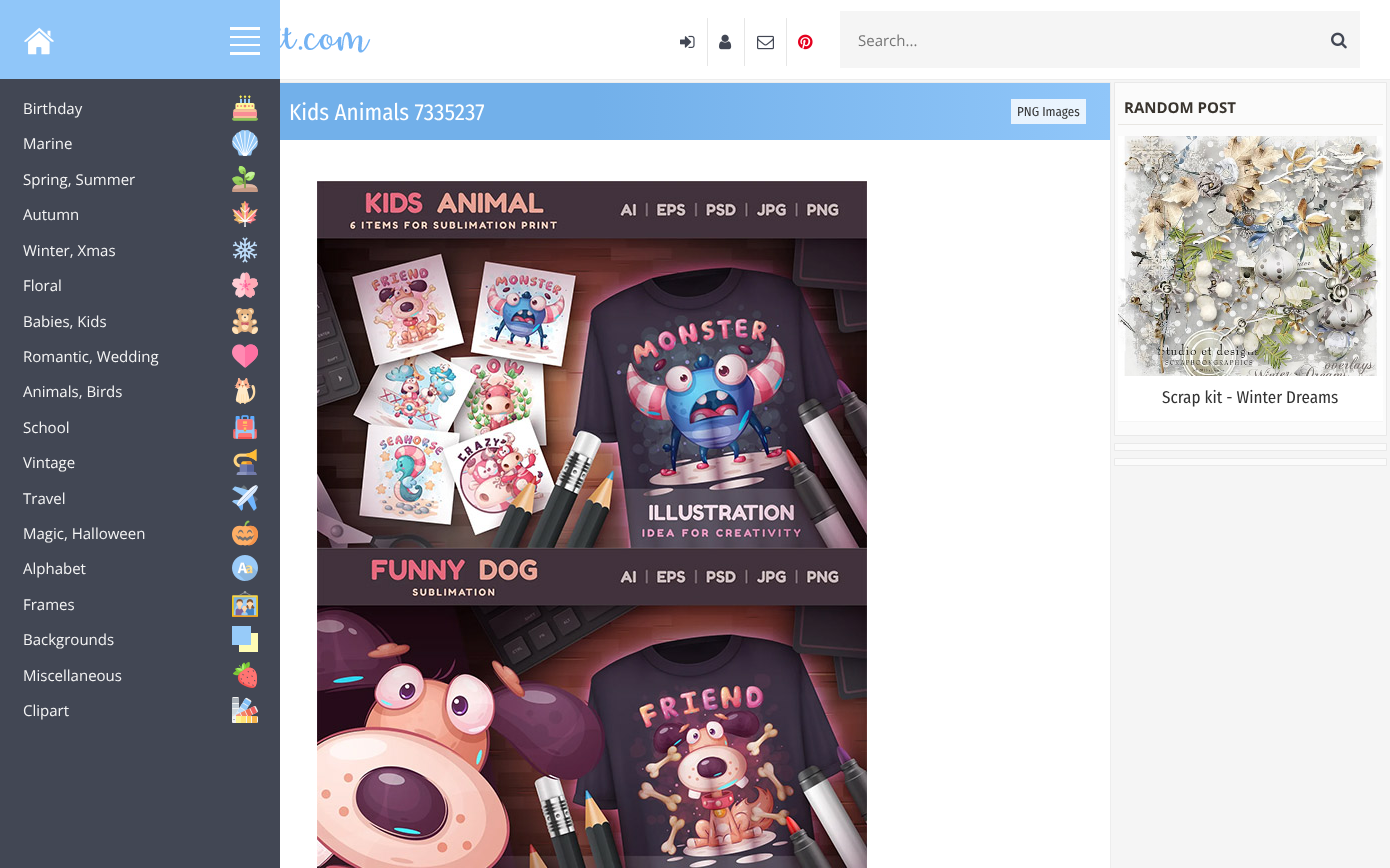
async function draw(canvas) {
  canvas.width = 1390
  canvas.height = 868
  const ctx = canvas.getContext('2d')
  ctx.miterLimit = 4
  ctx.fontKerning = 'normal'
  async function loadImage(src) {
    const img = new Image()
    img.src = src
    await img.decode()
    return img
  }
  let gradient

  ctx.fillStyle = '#f5f5f5'
  ctx.fillRect(0, 0, 1390, 868)
  ctx.fillStyle = '#fff'
  ctx.fillRect(280, 140, 830, 728)
  ctx.strokeStyle = '#ededed'
  ctx.strokeRect(73.5, 82.5, 1037, 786)
  ctx.fillStyle = '#424754'
  ctx.fillRect(0, 79, 280, 789)
  ctx.fillStyle = '#90c6f9'
  ctx.fillRect(0, 0, 280, 79)
  ctx.drawImage(await loadImage('image0.png'), 24, 27, 30, 28)
  ctx.fillStyle = '#fff'
  ctx.fillRect(230, 27, 30, 3)
  ctx.fillRect(230, 36, 30, 2)
  ctx.fillRect(230, 44, 30, 2)
  ctx.fillRect(230, 52, 30, 3)
  ctx.font = '15px Open Sans'
  ctx.fillStyle = '#f5f5f5'
  ctx.fillText('Birthday', 23, 114)
  ctx.drawImage(await loadImage('image1.png'), 232, 95, 26, 26)
  ctx.fillText('Marine', 23, 149)
  ctx.drawImage(await loadImage('image2.png'), 232, 130, 26, 26)
  ctx.fillText('Spring, Summer', 23, 185)
  ctx.drawImage(await loadImage('image3.png'), 232, 166, 26, 26)
  ctx.fillText('Autumn', 23, 220)
  ctx.drawImage(await loadImage('image4.png'), 232, 201, 26, 26)
  ctx.fillText('Winter, Xmas', 23, 256)
  ctx.drawImage(await loadImage('image5.png'), 232, 237, 26, 26)
  ctx.fillText('Floral', 23, 291)
  ctx.drawImage(await loadImage('image6.png'), 232, 272, 26, 26)
  ctx.fillText('Babies, Kids', 23, 327)
  ctx.drawImage(await loadImage('image7.png'), 232, 308, 26, 26)
  ctx.fillText('Romantic, Wedding', 23, 362)
  ctx.drawImage(await loadImage('image8.png'), 232, 344, 26, 24)
  ctx.fillText('Animals, Birds', 23, 397)
  ctx.drawImage(await loadImage('image9.png'), 234, 378, 22, 26)
  ctx.fillText('School', 23, 433)
  ctx.drawImage(await loadImage('image10.png'), 233, 415, 24, 24)
  ctx.fillText('Vintage', 23, 468)
  ctx.drawImage(await loadImage('image11.png'), 233, 449, 24, 26)
  ctx.fillText('Travel', 23, 504)
  ctx.drawImage(await loadImage('image12.png'), 232, 485, 26, 26)
  ctx.fillText('Magic, Halloween', 23, 539)
  ctx.drawImage(await loadImage('image13.png'), 232, 520, 26, 26)
  ctx.fillText('Alphabet', 23, 574)
  ctx.drawImage(await loadImage('image14.png'), 232, 555, 26, 26)
  ctx.fillText('Frames', 23, 610)
  ctx.drawImage(await loadImage('image15.png'), 232, 591, 26, 26)
  ctx.fillText('Backgrounds', 23, 645)
  ctx.fillStyle = '#fffcb5'
  ctx.beginPath()
  ctx.moveTo(239, 645)
  ctx.lineTo(239, 652)
  ctx.lineTo(258, 652)
  ctx.lineTo(258, 633)
  ctx.lineTo(251, 633)
  ctx.lineTo(251, 645)
  ctx.closePath()
  ctx.fill()
  ctx.fillStyle = '#97cbf9'
  ctx.fillRect(232, 626, 19, 19)
  ctx.fillStyle = '#f5f5f5'
  ctx.fillText('Miscellaneous', 23, 681)
  ctx.drawImage(await loadImage('image16.png'), 233, 662, 24, 26)
  ctx.fillText('Clipart', 23, 716)
  ctx.drawImage(await loadImage('image17.png'), 232, 697, 26, 26)
  ctx.fillStyle = '#fff'
  ctx.fillRect(280, 0, 1110, 79)
  ctx.fillStyle = '#ededed'
  ctx.fillRect(280, 79, 1110, 1)
  ctx.drawImage(await loadImage('image18.png'), 280, 27, 91, 26)
  ctx.fillStyle = '#e6e6e6'
  ctx.fillRect(707, 18, 1, 48)
  ctx.drawImage(await loadImage('image19.png'), 680, 35, 15, 13)
  ctx.fillRect(744, 18, 1, 48)
  ctx.drawImage(await loadImage('image20.png'), 719, 34, 13, 16)
  ctx.fillRect(786, 18, 1, 48)
  ctx.drawImage(await loadImage('image21.png'), 757, 35, 17, 15)
  ctx.drawImage(await loadImage('image22.png'), 798, 34, 15, 16)
  ctx.fillStyle = '#f5f5f5'
  ctx.fillRect(840, 11, 520, 57)
  ctx.fillStyle = '#757575'
  ctx.fillText('Search...', 858, 46)
  ctx.drawImage(await loadImage('image23.png'), 1331, 32, 16, 17)
  gradient = ctx.createLinearGradient(74, 28, 1110, 27)
  gradient.addColorStop(0.5, '#72b0ea')
  gradient.addColorStop(1, '#90c6f9')
  ctx.fillStyle = gradient
  ctx.fillRect(280, 83, 830, 57)
  gradient = ctx.createLinearGradient(74, 28, 1110, 27)
  gradient.addColorStop(0.5, '#e4f0fb')
  gradient.addColorStop(1, '#eaf4fe')
  ctx.fillStyle = gradient
  ctx.fillRect(1011, 99, 75, 25)
  ctx.font = '23px Fira Sans Condensed'
  ctx.fillStyle = '#fff'
  ctx.fillText('Kids Animals 7335237', 289, 120)
  ctx.font = '13px Fira Sans Condensed'
  ctx.fillStyle = '#333'
  ctx.fillText('PNG Images', 1017, 116)
  ctx.drawImage(await loadImage('image24.png'), 317, 181, 550, 367)
  ctx.drawImage(await loadImage('image25.png'), 317, 548, 550, 320)
  ctx.fillStyle = '#fbfbfb'
  ctx.beginPath()
  ctx.rect(1114.5, 82.5, 272, 353)
  ctx.fill()
  ctx.strokeStyle = '#e9e9e9'
  ctx.stroke()
  ctx.fillStyle = '#e8e6e2'
  ctx.fillRect(1118, 124, 265, 1)
  ctx.font = 'bold 15px Open Sans'
  ctx.fillStyle = '#39342e'
  ctx.fillText('RANDOM POST', 1124, 113)
  ctx.drawImage(await loadImage('image26.png'), 1118, 136, 265, 240)
  ctx.fillStyle = '#fff'
  ctx.fillRect(1118, 376, 265, 45)
  ctx.fillStyle = '#f5f5f5'
  ctx.fillRect(1118, 421, 265, 1)
  ctx.font = '17px Fira Sans Condensed'
  ctx.fillStyle = '#333'
  ctx.fillText('Scrap kit - Winter Dreams', 1162, 403)
  ctx.fillStyle = '#fbfbfb'
  ctx.beginPath()
  ctx.rect(1114.5, 443.5, 272, 7)
  ctx.fill()
  ctx.stroke()
  ctx.beginPath()
  ctx.rect(1114.5, 458.5, 272, 7)
  ctx.fill()
  ctx.stroke()
}

draw(document.querySelector('canvas'))
